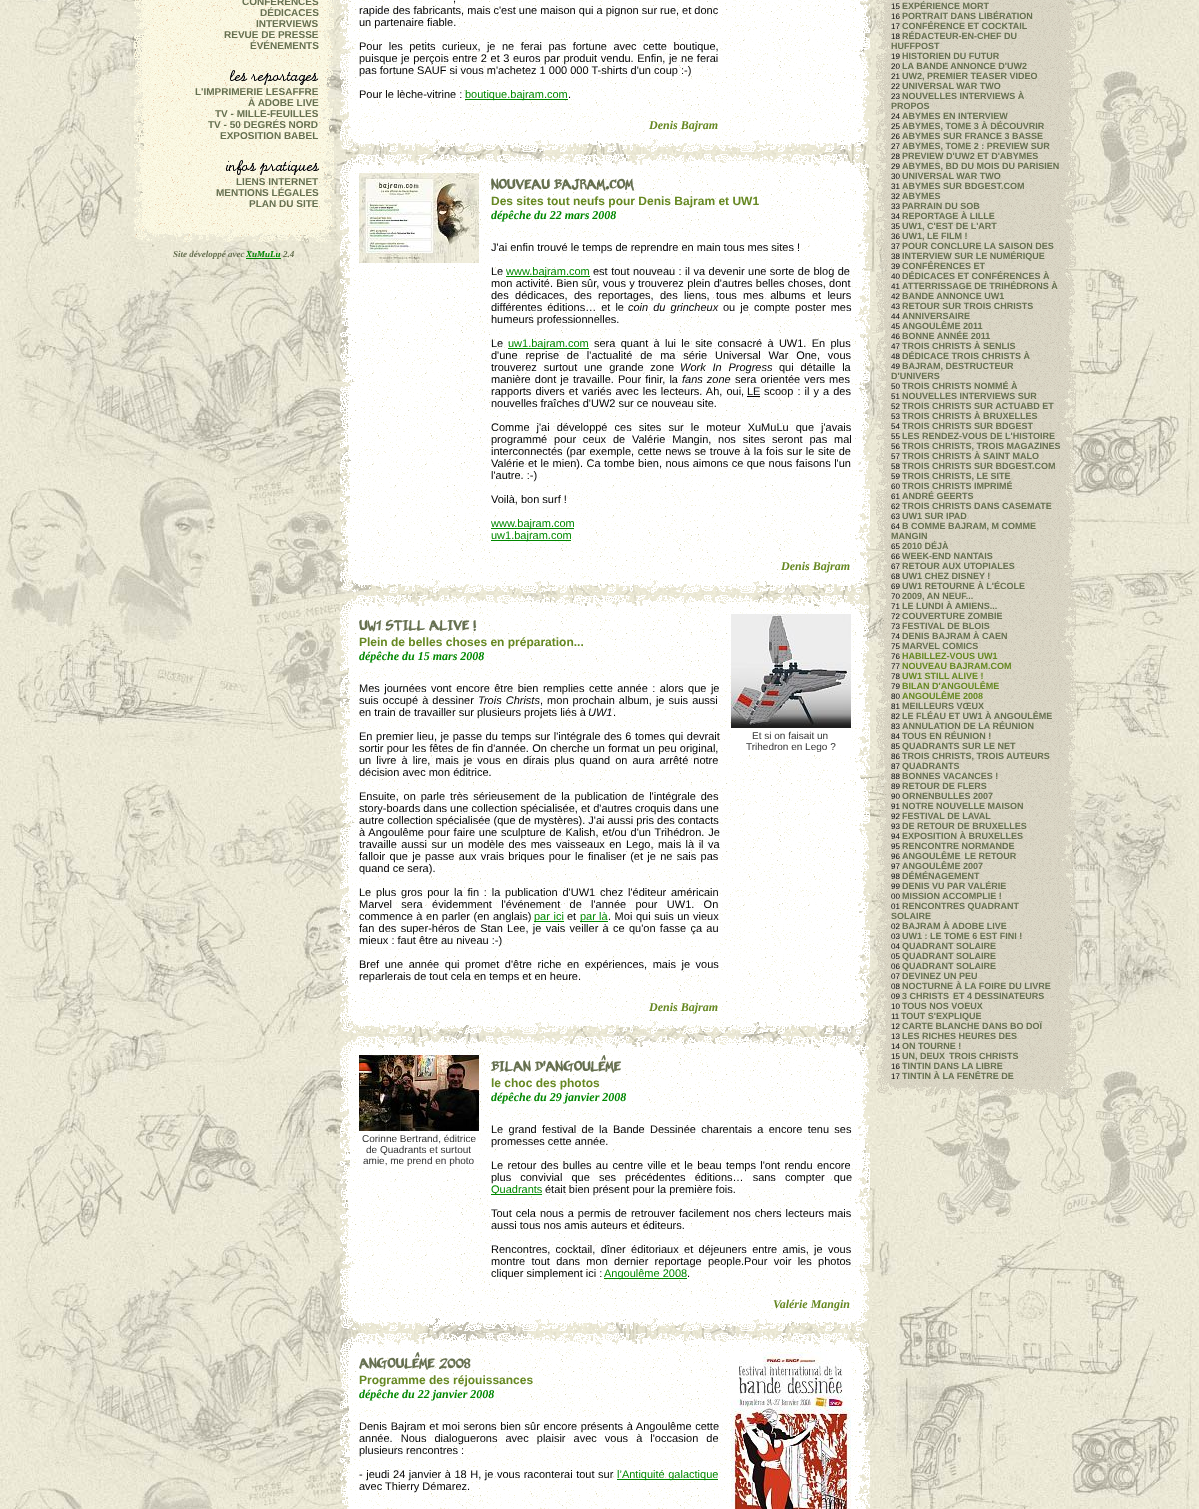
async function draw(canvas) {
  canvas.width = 1199
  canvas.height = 1509
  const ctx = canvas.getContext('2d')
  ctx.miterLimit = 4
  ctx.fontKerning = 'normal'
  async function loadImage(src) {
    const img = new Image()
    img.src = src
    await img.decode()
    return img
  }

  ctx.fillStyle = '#fff'
  ctx.fillRect(0, 0, 1199, 1509)
  ctx.drawImage(await loadImage('image0.png'), 0, 0, 1199, 1509)
  ctx.drawImage(await loadImage('image1.png'), 134, 0, 15, 227)
  ctx.drawImage(await loadImage('image2.png'), 149, 0, 170, 227)
  ctx.font = 'bold 10px Liberation Sans'
  ctx.fillStyle = '#667050'
  ctx.fillText('CONFÉRENCES', 242, 5)
  ctx.fillText('DÉDICACES', 260, 16)
  ctx.fillText('INTERVIEWS', 256, 27)
  ctx.fillText('REVUE DE PRESSE', 224, 38)
  ctx.fillText('ÉVÉNEMENTS', 250, 49)
  ctx.drawImage(await loadImage('image3.png'), 230, 70, 89, 15)
  ctx.fillText('L\'IMPRIMERIE LESAFFRE', 195, 95)
  ctx.fillText('À ADOBE LIVE', 248, 106)
  ctx.fillText('TV - MILLE-FEUILLES', 215, 117)
  ctx.fillText('TV - 50 DEGRÉS NORD', 208, 128)
  ctx.fillText('EXPOSITION BABEL', 220, 139)
  ctx.drawImage(await loadImage('image4.png'), 226, 160, 93, 15)
  ctx.fillText('LIENS INTERNET', 236, 185)
  ctx.fillText('MENTIONS LÉGALES', 216, 196)
  ctx.fillText('PLAN DU SITE', 249, 207)
  ctx.drawImage(await loadImage('image5.png'), 319, 0, 15, 227)
  ctx.drawImage(await loadImage('image6.png'), 134, 227, 15, 14)
  ctx.drawImage(await loadImage('image7.png'), 149, 227, 170, 15)
  ctx.drawImage(await loadImage('image8.png'), 319, 227, 13, 15)
  ctx.font = 'italic bold 9px Liberation Serif'
  ctx.fillText('Site développé avec', 173, 257)
  ctx.fillStyle = '#080'
  ctx.fillText('XuMuLu', 246, 257)
  ctx.fillRect(246, 258, 35, 1)
  ctx.fillStyle = '#667050'
  ctx.fillText('2.4', 283, 257)
  ctx.drawImage(await loadImage('image9.png'), 340, 0, 15, 137)
  ctx.drawImage(await loadImage('image10.png'), 355, 0, 500, 137)
  ctx.wordSpacing = '2.5px'
  ctx.font = '11px Liberation Sans'
  ctx.fillStyle = '#000'
  ctx.fillText(',', 453, 2)
  ctx.wordSpacing = '0px'
  ctx.fillText('rapide des fabricants, mais c\'est une maison qui a pignon sur rue, et donc', 359, 14)
  ctx.fillText('un partenaire fiable.', 359, 26)
  ctx.wordSpacing = '3.4px'
  ctx.fillText('Pour les petits curieux, je ne ferai pas fortune avec cette boutique,', 359, 50)
  ctx.wordSpacing = '0.5px'
  ctx.fillText('puisque je perçois entre 2 et 3 euros par produit vendu. Enfin, je ne ferai', 359, 62)
  ctx.wordSpacing = '0px'
  ctx.fillText('pas fortune SAUF si vous m\'achetez 1 000 000 T-shirts d\'un coup :-)', 359, 74)
  ctx.fillText('Pour le lèche-vitrine :', 359, 98)
  ctx.fillStyle = '#080'
  ctx.fillRect(465, 99, 103, 1)
  ctx.fillText('boutique.bajram.com', 465, 98)
  ctx.fillStyle = '#000'
  ctx.fillText('.', 568, 98)
  ctx.font = 'italic bold 12px Liberation Serif'
  ctx.fillStyle = '#682'
  ctx.fillText('Denis Bajram', 649, 129)
  ctx.drawImage(await loadImage('image11.png'), 855, 0, 15, 137)
  ctx.drawImage(await loadImage('image12.png'), 340, 137, 15, 14)
  ctx.drawImage(await loadImage('image13.png'), 355, 137, 500, 15)
  ctx.drawImage(await loadImage('image14.png'), 855, 137, 13, 15)
  ctx.drawImage(await loadImage('image15.png'), 342, 158, 13, 11)
  ctx.drawImage(await loadImage('image16.png'), 355, 154, 500, 15)
  ctx.drawImage(await loadImage('image17.png'), 855, 154, 14, 15)
  ctx.drawImage(await loadImage('image18.png'), 340, 169, 15, 409)
  ctx.drawImage(await loadImage('image19.png'), 355, 169, 500, 409)
  ctx.drawImage(await loadImage('image20.png'), 359, 173, 120, 90)
  ctx.font = 'bold 14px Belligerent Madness'
  ctx.fillStyle = '#667050'
  ctx.fillText('NOUVEAU BAJRAM.COM', 491, 189)
  ctx.font = 'bold 12px Liberation Sans'
  ctx.fillStyle = '#682'
  ctx.fillText('Des sites tout neufs pour Denis Bajram et UW1', 491, 205)
  ctx.font = 'italic bold 12px Liberation Serif'
  ctx.fillStyle = '#080'
  ctx.fillText('dépêche du 22 mars 2008', 491, 219)
  ctx.font = '11px Liberation Sans'
  ctx.fillStyle = '#000'
  ctx.fillText('J\'ai enfin trouvé le temps de reprendre en main tous mes sites !', 491, 251)
  ctx.fillText('Le', 491, 275)
  ctx.fillStyle = '#080'
  ctx.fillRect(506, 276, 84, 1)
  ctx.fillText('www.bajram.com', 506, 275)
  ctx.wordSpacing = '0.4px'
  ctx.fillStyle = '#000'
  ctx.fillText('est tout nouveau : il va devenir une sorte de blog de', 593, 275)
  ctx.wordSpacing = '0.25px'
  ctx.fillText('mon activité. Bien sûr, vous y trouverez plein d\'autres belles choses, dont', 491, 287)
  ctx.wordSpacing = '3.25px'
  ctx.fillText('des dédicaces, des reportages, des liens, tous mes albums et leurs', 491, 299)
  ctx.wordSpacing = '2px'
  ctx.fillText('différentes éditions… et le', 491, 311)
  ctx.font = 'italic 11px Liberation Sans'
  ctx.fillText('coin du grincheux', 628, 311)
  ctx.font = '11px Liberation Sans'
  ctx.fillText('ou je compte poster mes', 723, 311)
  ctx.wordSpacing = '0px'
  ctx.fillText('humeurs professionnelles.', 491, 323)
  ctx.fillText('Le', 491, 347)
  ctx.fillStyle = '#080'
  ctx.fillRect(508, 348, 81, 1)
  ctx.fillText('uw1.bajram.com', 508, 347)
  ctx.wordSpacing = '2.25px'
  ctx.fillStyle = '#000'
  ctx.fillText('sera quant à lui le site consacré à UW1. En plus', 594, 347)
  ctx.wordSpacing = '4.75px'
  ctx.fillText('d\'une reprise de l\'actualité de ma série Universal War One, vous', 491, 359)
  ctx.wordSpacing = '3.75px'
  ctx.fillText('trouverez surtout une grande zone', 491, 371)
  ctx.font = 'italic 11px Liberation Sans'
  ctx.fillText('Work In Progress', 680, 371)
  ctx.font = '11px Liberation Sans'
  ctx.fillText('qui détaille la', 779, 371)
  ctx.wordSpacing = '1px'
  ctx.fillText('manière dont je travaille. Pour finir, la', 491, 383)
  ctx.font = 'italic 11px Liberation Sans'
  ctx.fillText('fans zone', 682, 383)
  ctx.font = '11px Liberation Sans'
  ctx.fillText('sera orientée vers mes', 735, 383)
  ctx.fillText('rapports divers et variés avec les lecteurs. Ah, oui,', 491, 395)
  ctx.wordSpacing = '0px'
  ctx.fillText('LE', 747, 395)
  ctx.fillRect(747, 396, 13, 1)
  ctx.wordSpacing = '1px'
  ctx.fillText('scoop : il y a des', 764, 395)
  ctx.wordSpacing = '0px'
  ctx.fillText('nouvelles fraîches d\'UW2 sur ce nouveau site.', 491, 407)
  ctx.wordSpacing = '4px'
  ctx.fillText('Comme j\'ai développé ces sites sur le moteur XuMuLu que j\'avais', 491, 431)
  ctx.wordSpacing = '3.75px'
  ctx.fillText('programmé pour ceux de Valérie Mangin, nos sites seront pas mal', 491, 443)
  ctx.wordSpacing = '0.6px'
  ctx.fillText('interconnectés (par exemple, cette news se trouve à la fois sur le site de', 491, 455)
  ctx.wordSpacing = '0.4px'
  ctx.fillText('Valérie et le mien). Ca tombe bien, nous aimons ce que nous faisons l\'un', 491, 467)
  ctx.wordSpacing = '0px'
  ctx.fillText('l\'autre. :-)', 491, 479)
  ctx.fillText('Voilà, bon surf !', 491, 503)
  ctx.fillStyle = '#080'
  ctx.fillRect(491, 528, 83, 1)
  ctx.fillText('www.bajram.com', 491, 527)
  ctx.fillRect(491, 540, 80, 1)
  ctx.fillText('uw1.bajram.com', 491, 539)
  ctx.font = 'italic bold 12px Liberation Serif'
  ctx.fillStyle = '#682'
  ctx.fillText('Denis Bajram', 781, 570)
  ctx.drawImage(await loadImage('image21.png'), 855, 169, 15, 409)
  ctx.drawImage(await loadImage('image22.png'), 340, 578, 15, 14)
  ctx.drawImage(await loadImage('image23.png'), 355, 578, 500, 15)
  ctx.drawImage(await loadImage('image24.png'), 855, 578, 13, 15)
  ctx.drawImage(await loadImage('image25.png'), 342, 599, 13, 11)
  ctx.drawImage(await loadImage('image26.png'), 355, 595, 500, 15)
  ctx.drawImage(await loadImage('image27.png'), 855, 595, 14, 15)
  ctx.drawImage(await loadImage('image28.png'), 340, 610, 15, 409)
  ctx.drawImage(await loadImage('image19.png'), 355, 610, 500, 409)
  ctx.font = 'bold 14px Belligerent Madness'
  ctx.fillStyle = '#667050'
  ctx.fillText('UW1 STILL ALIVE !', 359, 630)
  ctx.font = 'bold 12px Liberation Sans'
  ctx.fillStyle = '#682'
  ctx.fillText('Plein de belles choses en préparation...', 359, 646)
  ctx.font = 'italic bold 12px Liberation Serif'
  ctx.fillStyle = '#080'
  ctx.fillText('dépêche du 15 mars 2008', 359, 660)
  ctx.wordSpacing = '1.4px'
  ctx.font = '11px Liberation Sans'
  ctx.fillStyle = '#000'
  ctx.fillText('Mes journées vont encore être bien remplies cette année : alors que je', 359, 692)
  ctx.wordSpacing = '1px'
  ctx.fillText('suis occupé à dessiner', 359, 704)
  ctx.font = 'italic 11px Liberation Sans'
  ctx.fillText('Trois Christs', 478, 704)
  ctx.font = '11px Liberation Sans'
  ctx.fillText(', mon prochain album, je suis aussi', 540, 704)
  ctx.wordSpacing = '0px'
  ctx.fillText('en train de travailler sur plusieurs projets liés à', 359, 716)
  ctx.font = 'italic 11px Liberation Sans'
  ctx.fillText('UW1', 588, 716)
  ctx.font = '11px Liberation Sans'
  ctx.fillText('.', 613, 716)
  ctx.wordSpacing = '0.5px'
  ctx.fillText('En premier lieu, je passe du temps sur l\'intégrale des 6 tomes qui devrait', 359, 740)
  ctx.wordSpacing = '0.25px'
  ctx.fillText('sortir pour les fêtes de fin d\'année. On cherche un format un peu original,', 359, 752)
  ctx.wordSpacing = '2px'
  ctx.fillText('un livre à lire, mais je vous en dirais plus quand on aura arrêté notre', 359, 764)
  ctx.wordSpacing = '0px'
  ctx.fillText('décision avec mon éditrice.', 359, 776)
  ctx.wordSpacing = '1.8px'
  ctx.fillText('Ensuite, on parle très sérieusement de la publication de l\'intégrale des', 359, 800)
  ctx.wordSpacing = '0px'
  ctx.fillText('story-boards dans une collection spécialisée, et d\'autres croquis dans une', 359, 812)
  ctx.fillText('autre collection spécialisée (que de mystères). J\'ai aussi pris des contacts', 359, 824)
  ctx.wordSpacing = '0.75px'
  ctx.fillText('à Angoulême pour faire une sculpture de Kalish, et/ou d\'un Trihédron. Je', 359, 836)
  ctx.wordSpacing = '1.4px'
  ctx.fillText('travaille aussi sur un modèle des mes vaisseaux en Lego, mais là il va', 359, 848)
  ctx.wordSpacing = '1.25px'
  ctx.fillText('falloir que je passe aux vrais briques pour le finaliser (et je ne sais pas', 359, 860)
  ctx.wordSpacing = '0px'
  ctx.fillText('quand ce sera).', 359, 872)
  ctx.wordSpacing = '1.75px'
  ctx.fillText('Le plus gros pour la fin : la publication d\'UW1 chez l\'éditeur américain', 359, 896)
  ctx.wordSpacing = '6.25px'
  ctx.fillText('Marvel sera évidemment l\'événement de l\'année pour UW1. On', 359, 908)
  ctx.wordSpacing = '0.5px'
  ctx.fillText('commence à en parler (en anglais)', 359, 920)
  ctx.fillStyle = '#080'
  ctx.fillRect(534, 921, 30, 1)
  ctx.fillText('par ici', 534, 920)
  ctx.wordSpacing = '0px'
  ctx.fillStyle = '#000'
  ctx.fillText('et', 567, 920)
  ctx.fillStyle = '#080'
  ctx.fillRect(580, 921, 28, 1)
  ctx.fillText('par là', 580, 920)
  ctx.wordSpacing = '0.5px'
  ctx.fillStyle = '#000'
  ctx.fillText('. Moi qui suis un vieux', 608, 920)
  ctx.wordSpacing = '1.25px'
  ctx.fillText('fan des super-héros de Stan Lee, je vais veiller à ce qu\'on fasse ça au', 359, 932)
  ctx.wordSpacing = '0px'
  ctx.fillText('mieux : faut être au niveau :-)', 359, 944)
  ctx.wordSpacing = '2.5px'
  ctx.fillText('Bref une année qui promet d\'être riche en expériences, mais je vous', 359, 968)
  ctx.wordSpacing = '0px'
  ctx.fillText('reparlerais de tout cela en temps et en heure.', 359, 980)
  ctx.font = 'italic bold 12px Liberation Serif'
  ctx.fillStyle = '#682'
  ctx.fillText('Denis Bajram', 649, 1011)
  ctx.drawImage(await loadImage('image29.png'), 731, 614, 120, 114)
  ctx.fillStyle = '#fff'
  ctx.fillRect(731, 728, 120, 26)
  ctx.font = '10px Liberation Sans'
  ctx.fillStyle = '#333'
  ctx.fillText('Et si on faisait un', 752, 739)
  ctx.fillText('Trihedron en Lego ?', 746, 750)
  ctx.drawImage(await loadImage('image30.png'), 855, 610, 15, 409)
  ctx.drawImage(await loadImage('image31.png'), 340, 1019, 15, 14)
  ctx.drawImage(await loadImage('image32.png'), 355, 1019, 500, 15)
  ctx.drawImage(await loadImage('image33.png'), 855, 1019, 13, 15)
  ctx.drawImage(await loadImage('image34.png'), 342, 1040, 13, 11)
  ctx.drawImage(await loadImage('image35.png'), 355, 1036, 500, 15)
  ctx.drawImage(await loadImage('image36.png'), 855, 1036, 14, 15)
  ctx.drawImage(await loadImage('image37.png'), 340, 1051, 15, 265)
  ctx.drawImage(await loadImage('image38.png'), 355, 1051, 500, 265)
  ctx.drawImage(await loadImage('image39.png'), 359, 1055, 120, 76)
  ctx.fillStyle = '#fff'
  ctx.fillRect(359, 1131, 120, 37)
  ctx.fillStyle = '#333'
  ctx.fillText('Corinne Bertrand, éditrice', 362, 1142)
  ctx.fillText('de Quadrants et surtout', 366, 1153)
  ctx.fillText('amie, me prend en photo', 363, 1164)
  ctx.font = 'bold 14px Belligerent Madness'
  ctx.fillStyle = '#667050'
  ctx.fillText('BILAN D\'ANGOULÊME', 491, 1071)
  ctx.font = 'bold 12px Liberation Sans'
  ctx.fillStyle = '#682'
  ctx.fillText('le choc des photos', 491, 1087)
  ctx.font = 'italic bold 12px Liberation Serif'
  ctx.fillStyle = '#080'
  ctx.fillText('dépêche du 29 janvier 2008', 491, 1101)
  ctx.wordSpacing = '2.25px'
  ctx.font = '11px Liberation Sans'
  ctx.fillStyle = '#000'
  ctx.fillText('Le grand festival de la Bande Dessinée charentais a encore tenu ses', 491, 1133)
  ctx.wordSpacing = '0px'
  ctx.fillText('promesses cette année.', 491, 1145)
  ctx.wordSpacing = '1.3px'
  ctx.fillText('Le retour des bulles au centre ville et le beau temps l\'ont rendu encore', 491, 1169)
  ctx.wordSpacing = '6px'
  ctx.fillText('plus convivial que ses précédentes éditions… sans compter que', 491, 1181)
  ctx.fillStyle = '#080'
  ctx.fillRect(491, 1194, 51, 1)
  ctx.wordSpacing = '0px'
  ctx.fillText('Quadrants', 491, 1193)
  ctx.fillStyle = '#000'
  ctx.fillText('était bien présent pour la première fois.', 545, 1193)
  ctx.wordSpacing = '0.9px'
  ctx.fillText('Tout cela nous a permis de retrouver facilement nos chers lecteurs mais', 491, 1217)
  ctx.wordSpacing = '0px'
  ctx.fillText('aussi tous nos amis auteurs et éditeurs.', 491, 1229)
  ctx.wordSpacing = '2.25px'
  ctx.fillText('Rencontres, cocktail, dîner éditoriaux et déjeuners entre amis, je vous', 491, 1253)
  ctx.wordSpacing = '3.25px'
  ctx.fillText('montre tout dans mon dernier reportage people.Pour voir les photos', 491, 1265)
  ctx.wordSpacing = '0px'
  ctx.fillText('cliquer simplement ici :', 491, 1277)
  ctx.fillStyle = '#080'
  ctx.fillRect(604, 1278, 83, 1)
  ctx.fillText('Angoulême 2008', 604, 1277)
  ctx.fillStyle = '#000'
  ctx.fillText('.', 687, 1277)
  ctx.font = 'italic bold 12px Liberation Serif'
  ctx.fillStyle = '#682'
  ctx.fillText('Valérie Mangin', 773, 1308)
  ctx.drawImage(await loadImage('image40.png'), 855, 1051, 15, 265)
  ctx.drawImage(await loadImage('image41.png'), 340, 1316, 15, 14)
  ctx.drawImage(await loadImage('image42.png'), 355, 1316, 500, 15)
  ctx.drawImage(await loadImage('image43.png'), 855, 1316, 13, 15)
  ctx.drawImage(await loadImage('image44.png'), 342, 1337, 13, 11)
  ctx.drawImage(await loadImage('image45.png'), 355, 1333, 500, 15)
  ctx.drawImage(await loadImage('image46.png'), 855, 1333, 14, 15)
  ctx.drawImage(await loadImage('image47.png'), 340, 1348, 15, 161)
  ctx.drawImage(await loadImage('image48.png'), 355, 1348, 500, 161)
  ctx.font = 'bold 14px Belligerent Madness'
  ctx.fillStyle = '#667050'
  ctx.fillText('ANGOULÊME 2008', 359, 1368)
  ctx.font = 'bold 12px Liberation Sans'
  ctx.fillStyle = '#682'
  ctx.fillText('Programme des réjouissances', 359, 1384)
  ctx.font = 'italic bold 12px Liberation Serif'
  ctx.fillStyle = '#080'
  ctx.fillText('dépêche du 22 janvier 2008', 359, 1398)
  ctx.wordSpacing = '0.6px'
  ctx.font = '11px Liberation Sans'
  ctx.fillStyle = '#000'
  ctx.fillText('Denis Bajram et moi serons bien sûr encore présents à Angoulême cette', 359, 1430)
  ctx.wordSpacing = '5px'
  ctx.fillText('année. Nous dialoguerons avec plaisir avec vous à l\'occasion de', 359, 1442)
  ctx.wordSpacing = '0px'
  ctx.fillText('plusieurs rencontres :', 359, 1454)
  ctx.wordSpacing = '0.5px'
  ctx.fillText('- jeudi 24 janvier à 18 H, je vous raconterai tout sur', 359, 1478)
  ctx.fillStyle = '#080'
  ctx.fillRect(617, 1479, 101, 1)
  ctx.fillText('l’Antiquité galactique', 617, 1478)
  ctx.wordSpacing = '0px'
  ctx.fillStyle = '#000'
  ctx.fillText('avec Thierry Démarez.', 359, 1490)
  ctx.drawImage(await loadImage('image49.png'), 731, 1352, 120, 157)
  ctx.drawImage(await loadImage('image50.png'), 855, 1348, 15, 161)
  ctx.drawImage(await loadImage('image51.png'), 876, 0, 15, 1081)
  ctx.drawImage(await loadImage('image52.png'), 891, 0, 170, 1081)
  ctx.font = '8px Liberation Sans'
  ctx.fillText('15', 891, 9)
  ctx.font = 'bold 9px Liberation Sans'
  ctx.fillStyle = '#667050'
  ctx.fillText('EXPÉRIENCE MORT', 902, 9)
  ctx.font = '8px Liberation Sans'
  ctx.fillStyle = '#000'
  ctx.fillText('16', 891, 19)
  ctx.font = 'bold 9px Liberation Sans'
  ctx.fillStyle = '#667050'
  ctx.fillText('PORTRAIT DANS LIBÉRATION', 902, 19)
  ctx.font = '8px Liberation Sans'
  ctx.fillStyle = '#000'
  ctx.fillText('17', 891, 29)
  ctx.font = 'bold 9px Liberation Sans'
  ctx.fillStyle = '#667050'
  ctx.fillText('CONFÉRENCE ET COCKTAIL', 902, 29)
  ctx.font = '8px Liberation Sans'
  ctx.fillStyle = '#000'
  ctx.fillText('18', 891, 39)
  ctx.font = 'bold 9px Liberation Sans'
  ctx.fillStyle = '#667050'
  ctx.fillText('RÉDACTEUR-EN-CHEF DU', 902, 39)
  ctx.fillText('HUFFPOST', 891, 49)
  ctx.font = '8px Liberation Sans'
  ctx.fillStyle = '#000'
  ctx.fillText('19', 891, 59)
  ctx.font = 'bold 9px Liberation Sans'
  ctx.fillStyle = '#667050'
  ctx.fillText('HISTORIEN DU FUTUR', 902, 59)
  ctx.font = '8px Liberation Sans'
  ctx.fillStyle = '#000'
  ctx.fillText('20', 891, 69)
  ctx.font = 'bold 9px Liberation Sans'
  ctx.fillStyle = '#667050'
  ctx.fillText('LA BANDE ANNONCE D\'UW2', 902, 69)
  ctx.font = '8px Liberation Sans'
  ctx.fillStyle = '#000'
  ctx.fillText('21', 891, 79)
  ctx.font = 'bold 9px Liberation Sans'
  ctx.fillStyle = '#667050'
  ctx.fillText('UW2, PREMIER TEASER VIDEO', 902, 79)
  ctx.font = '8px Liberation Sans'
  ctx.fillStyle = '#000'
  ctx.fillText('22', 891, 89)
  ctx.font = 'bold 9px Liberation Sans'
  ctx.fillStyle = '#667050'
  ctx.fillText('UNIVERSAL WAR TWO', 902, 89)
  ctx.font = '8px Liberation Sans'
  ctx.fillStyle = '#000'
  ctx.fillText('23', 891, 99)
  ctx.font = 'bold 9px Liberation Sans'
  ctx.fillStyle = '#667050'
  ctx.fillText('NOUVELLES INTERVIEWS À', 902, 99)
  ctx.fillText('PROPOS', 891, 109)
  ctx.font = '8px Liberation Sans'
  ctx.fillStyle = '#000'
  ctx.fillText('24', 891, 119)
  ctx.font = 'bold 9px Liberation Sans'
  ctx.fillStyle = '#667050'
  ctx.fillText('ABYMES EN INTERVIEW', 902, 119)
  ctx.font = '8px Liberation Sans'
  ctx.fillStyle = '#000'
  ctx.fillText('25', 891, 129)
  ctx.font = 'bold 9px Liberation Sans'
  ctx.fillStyle = '#667050'
  ctx.fillText('ABYMES, TOME 3 À DÉCOUVRIR', 902, 129)
  ctx.font = '8px Liberation Sans'
  ctx.fillStyle = '#000'
  ctx.fillText('26', 891, 139)
  ctx.font = 'bold 9px Liberation Sans'
  ctx.fillStyle = '#667050'
  ctx.fillText('ABYMES SUR FRANCE 3 BASSE', 902, 139)
  ctx.font = '8px Liberation Sans'
  ctx.fillStyle = '#000'
  ctx.fillText('27', 891, 149)
  ctx.font = 'bold 9px Liberation Sans'
  ctx.fillStyle = '#667050'
  ctx.fillText('ABYMES, TOME 2 : PREVIEW SUR', 902, 149)
  ctx.font = '8px Liberation Sans'
  ctx.fillStyle = '#000'
  ctx.fillText('28', 891, 159)
  ctx.font = 'bold 9px Liberation Sans'
  ctx.fillStyle = '#667050'
  ctx.fillText('PREVIEW D\'UW2 ET D\'ABYMES', 902, 159)
  ctx.font = '8px Liberation Sans'
  ctx.fillStyle = '#000'
  ctx.fillText('29', 891, 169)
  ctx.font = 'bold 9px Liberation Sans'
  ctx.fillStyle = '#667050'
  ctx.fillText('ABYMES, BD DU MOIS DU PARISIEN', 902, 169)
  ctx.font = '8px Liberation Sans'
  ctx.fillStyle = '#000'
  ctx.fillText('30', 891, 179)
  ctx.font = 'bold 9px Liberation Sans'
  ctx.fillStyle = '#667050'
  ctx.fillText('UNIVERSAL WAR TWO', 902, 179)
  ctx.font = '8px Liberation Sans'
  ctx.fillStyle = '#000'
  ctx.fillText('31', 891, 189)
  ctx.font = 'bold 9px Liberation Sans'
  ctx.fillStyle = '#667050'
  ctx.fillText('ABYMES SUR BDGEST.COM', 902, 189)
  ctx.font = '8px Liberation Sans'
  ctx.fillStyle = '#000'
  ctx.fillText('32', 891, 199)
  ctx.font = 'bold 9px Liberation Sans'
  ctx.fillStyle = '#667050'
  ctx.fillText('ABYMES', 902, 199)
  ctx.font = '8px Liberation Sans'
  ctx.fillStyle = '#000'
  ctx.fillText('33', 891, 209)
  ctx.font = 'bold 9px Liberation Sans'
  ctx.fillStyle = '#667050'
  ctx.fillText('PARRAIN DU SOB', 902, 209)
  ctx.font = '8px Liberation Sans'
  ctx.fillStyle = '#000'
  ctx.fillText('34', 891, 219)
  ctx.font = 'bold 9px Liberation Sans'
  ctx.fillStyle = '#667050'
  ctx.fillText('REPORTAGE À LILLE', 902, 219)
  ctx.font = '8px Liberation Sans'
  ctx.fillStyle = '#000'
  ctx.fillText('35', 891, 229)
  ctx.font = 'bold 9px Liberation Sans'
  ctx.fillStyle = '#667050'
  ctx.fillText('UW1, C\'EST DE L\'ART', 902, 229)
  ctx.font = '8px Liberation Sans'
  ctx.fillStyle = '#000'
  ctx.fillText('36', 891, 239)
  ctx.font = 'bold 9px Liberation Sans'
  ctx.fillStyle = '#667050'
  ctx.fillText('UW1, LE FILM !', 902, 239)
  ctx.font = '8px Liberation Sans'
  ctx.fillStyle = '#000'
  ctx.fillText('37', 891, 249)
  ctx.font = 'bold 9px Liberation Sans'
  ctx.fillStyle = '#667050'
  ctx.fillText('POUR CONCLURE LA SAISON DES', 902, 249)
  ctx.font = '8px Liberation Sans'
  ctx.fillStyle = '#000'
  ctx.fillText('38', 891, 259)
  ctx.font = 'bold 9px Liberation Sans'
  ctx.fillStyle = '#667050'
  ctx.fillText('INTERVIEW SUR LE NUMÉRIQUE', 902, 259)
  ctx.font = '8px Liberation Sans'
  ctx.fillStyle = '#000'
  ctx.fillText('39', 891, 269)
  ctx.font = 'bold 9px Liberation Sans'
  ctx.fillStyle = '#667050'
  ctx.fillText('CONFÉRENCES ET', 902, 269)
  ctx.font = '8px Liberation Sans'
  ctx.fillStyle = '#000'
  ctx.fillText('40', 891, 279)
  ctx.font = 'bold 9px Liberation Sans'
  ctx.fillStyle = '#667050'
  ctx.fillText('DÉDICACES ET CONFÉRENCES À', 902, 279)
  ctx.font = '8px Liberation Sans'
  ctx.fillStyle = '#000'
  ctx.fillText('41', 891, 289)
  ctx.font = 'bold 9px Liberation Sans'
  ctx.fillStyle = '#667050'
  ctx.fillText('ATTERRISSAGE DE TRIHÉDRONS À', 902, 289)
  ctx.font = '8px Liberation Sans'
  ctx.fillStyle = '#000'
  ctx.fillText('42', 891, 299)
  ctx.font = 'bold 9px Liberation Sans'
  ctx.fillStyle = '#667050'
  ctx.fillText('BANDE ANNONCE UW1', 902, 299)
  ctx.font = '8px Liberation Sans'
  ctx.fillStyle = '#000'
  ctx.fillText('43', 891, 309)
  ctx.font = 'bold 9px Liberation Sans'
  ctx.fillStyle = '#667050'
  ctx.fillText('RETOUR SUR TROIS CHRISTS', 902, 309)
  ctx.font = '8px Liberation Sans'
  ctx.fillStyle = '#000'
  ctx.fillText('44', 891, 319)
  ctx.font = 'bold 9px Liberation Sans'
  ctx.fillStyle = '#667050'
  ctx.fillText('ANNIVERSAIRE', 902, 319)
  ctx.font = '8px Liberation Sans'
  ctx.fillStyle = '#000'
  ctx.fillText('45', 891, 329)
  ctx.font = 'bold 9px Liberation Sans'
  ctx.fillStyle = '#667050'
  ctx.fillText('ANGOULÊME 2011', 902, 329)
  ctx.font = '8px Liberation Sans'
  ctx.fillStyle = '#000'
  ctx.fillText('46', 891, 339)
  ctx.font = 'bold 9px Liberation Sans'
  ctx.fillStyle = '#667050'
  ctx.fillText('BONNE ANNÉE 2011', 902, 339)
  ctx.font = '8px Liberation Sans'
  ctx.fillStyle = '#000'
  ctx.fillText('47', 891, 349)
  ctx.font = 'bold 9px Liberation Sans'
  ctx.fillStyle = '#667050'
  ctx.fillText('TROIS CHRISTS À SENLIS', 902, 349)
  ctx.font = '8px Liberation Sans'
  ctx.fillStyle = '#000'
  ctx.fillText('48', 891, 359)
  ctx.font = 'bold 9px Liberation Sans'
  ctx.fillStyle = '#667050'
  ctx.fillText('DÉDICACE TROIS CHRISTS À', 902, 359)
  ctx.font = '8px Liberation Sans'
  ctx.fillStyle = '#000'
  ctx.fillText('49', 891, 369)
  ctx.font = 'bold 9px Liberation Sans'
  ctx.fillStyle = '#667050'
  ctx.fillText('BAJRAM, DESTRUCTEUR', 902, 369)
  ctx.fillText('D\'UNIVERS', 891, 379)
  ctx.font = '8px Liberation Sans'
  ctx.fillStyle = '#000'
  ctx.fillText('50', 891, 389)
  ctx.font = 'bold 9px Liberation Sans'
  ctx.fillStyle = '#667050'
  ctx.fillText('TROIS CHRISTS NOMMÉ À', 902, 389)
  ctx.font = '8px Liberation Sans'
  ctx.fillStyle = '#000'
  ctx.fillText('51', 891, 399)
  ctx.font = 'bold 9px Liberation Sans'
  ctx.fillStyle = '#667050'
  ctx.fillText('NOUVELLES INTERVIEWS SUR', 902, 399)
  ctx.font = '8px Liberation Sans'
  ctx.fillStyle = '#000'
  ctx.fillText('52', 891, 409)
  ctx.font = 'bold 9px Liberation Sans'
  ctx.fillStyle = '#667050'
  ctx.fillText('TROIS CHRISTS SUR ACTUABD ET', 902, 409)
  ctx.font = '8px Liberation Sans'
  ctx.fillStyle = '#000'
  ctx.fillText('53', 891, 419)
  ctx.font = 'bold 9px Liberation Sans'
  ctx.fillStyle = '#667050'
  ctx.fillText('TROIS CHRISTS À BRUXELLES', 902, 419)
  ctx.font = '8px Liberation Sans'
  ctx.fillStyle = '#000'
  ctx.fillText('54', 891, 429)
  ctx.font = 'bold 9px Liberation Sans'
  ctx.fillStyle = '#667050'
  ctx.fillText('TROIS CHRISTS SUR BDGEST', 902, 429)
  ctx.font = '8px Liberation Sans'
  ctx.fillStyle = '#000'
  ctx.fillText('55', 891, 439)
  ctx.font = 'bold 9px Liberation Sans'
  ctx.fillStyle = '#667050'
  ctx.fillText('LES RENDEZ-VOUS DE L\'HISTOIRE', 902, 439)
  ctx.font = '8px Liberation Sans'
  ctx.fillStyle = '#000'
  ctx.fillText('56', 891, 449)
  ctx.font = 'bold 9px Liberation Sans'
  ctx.fillStyle = '#667050'
  ctx.fillText('TROIS CHRISTS, TROIS MAGAZINES', 902, 449)
  ctx.font = '8px Liberation Sans'
  ctx.fillStyle = '#000'
  ctx.fillText('57', 891, 459)
  ctx.font = 'bold 9px Liberation Sans'
  ctx.fillStyle = '#667050'
  ctx.fillText('TROIS CHRISTS À SAINT MALO', 902, 459)
  ctx.font = '8px Liberation Sans'
  ctx.fillStyle = '#000'
  ctx.fillText('58', 891, 469)
  ctx.font = 'bold 9px Liberation Sans'
  ctx.fillStyle = '#667050'
  ctx.fillText('TROIS CHRISTS SUR BDGEST.COM', 902, 469)
  ctx.font = '8px Liberation Sans'
  ctx.fillStyle = '#000'
  ctx.fillText('59', 891, 479)
  ctx.font = 'bold 9px Liberation Sans'
  ctx.fillStyle = '#667050'
  ctx.fillText('TROIS CHRISTS, LE SITE', 902, 479)
  ctx.font = '8px Liberation Sans'
  ctx.fillStyle = '#000'
  ctx.fillText('60', 891, 489)
  ctx.font = 'bold 9px Liberation Sans'
  ctx.fillStyle = '#667050'
  ctx.fillText('TROIS CHRISTS IMPRIMÉ', 902, 489)
  ctx.font = '8px Liberation Sans'
  ctx.fillStyle = '#000'
  ctx.fillText('61', 891, 499)
  ctx.font = 'bold 9px Liberation Sans'
  ctx.fillStyle = '#667050'
  ctx.fillText('ANDRÉ GEERTS', 902, 499)
  ctx.font = '8px Liberation Sans'
  ctx.fillStyle = '#000'
  ctx.fillText('62', 891, 509)
  ctx.font = 'bold 9px Liberation Sans'
  ctx.fillStyle = '#667050'
  ctx.fillText('TROIS CHRISTS DANS CASEMATE', 902, 509)
  ctx.font = '8px Liberation Sans'
  ctx.fillStyle = '#000'
  ctx.fillText('63', 891, 519)
  ctx.font = 'bold 9px Liberation Sans'
  ctx.fillStyle = '#667050'
  ctx.fillText('UW1 SUR IPAD', 902, 519)
  ctx.font = '8px Liberation Sans'
  ctx.fillStyle = '#000'
  ctx.fillText('64', 891, 529)
  ctx.font = 'bold 9px Liberation Sans'
  ctx.fillStyle = '#667050'
  ctx.fillText('B COMME BAJRAM, M COMME', 902, 529)
  ctx.fillText('MANGIN', 891, 539)
  ctx.font = '8px Liberation Sans'
  ctx.fillStyle = '#000'
  ctx.fillText('65', 891, 549)
  ctx.font = 'bold 9px Liberation Sans'
  ctx.fillStyle = '#667050'
  ctx.fillText('2010 DÉJÀ', 902, 549)
  ctx.font = '8px Liberation Sans'
  ctx.fillStyle = '#000'
  ctx.fillText('66', 891, 559)
  ctx.font = 'bold 9px Liberation Sans'
  ctx.fillStyle = '#667050'
  ctx.fillText('WEEK-END NANTAIS', 902, 559)
  ctx.font = '8px Liberation Sans'
  ctx.fillStyle = '#000'
  ctx.fillText('67', 891, 569)
  ctx.font = 'bold 9px Liberation Sans'
  ctx.fillStyle = '#667050'
  ctx.fillText('RETOUR AUX UTOPIALES', 902, 569)
  ctx.font = '8px Liberation Sans'
  ctx.fillStyle = '#000'
  ctx.fillText('68', 891, 579)
  ctx.font = 'bold 9px Liberation Sans'
  ctx.fillStyle = '#667050'
  ctx.fillText('UW1 CHEZ DISNEY !', 902, 579)
  ctx.font = '8px Liberation Sans'
  ctx.fillStyle = '#000'
  ctx.fillText('69', 891, 589)
  ctx.font = 'bold 9px Liberation Sans'
  ctx.fillStyle = '#667050'
  ctx.fillText('UW1 RETOURNE À L\'ÉCOLE', 902, 589)
  ctx.font = '8px Liberation Sans'
  ctx.fillStyle = '#000'
  ctx.fillText('70', 891, 599)
  ctx.font = 'bold 9px Liberation Sans'
  ctx.fillStyle = '#667050'
  ctx.fillText('2009, AN NEUF...', 902, 599)
  ctx.font = '8px Liberation Sans'
  ctx.fillStyle = '#000'
  ctx.fillText('71', 891, 609)
  ctx.font = 'bold 9px Liberation Sans'
  ctx.fillStyle = '#667050'
  ctx.fillText('LE LUNDI À AMIENS...', 902, 609)
  ctx.font = '8px Liberation Sans'
  ctx.fillStyle = '#000'
  ctx.fillText('72', 891, 619)
  ctx.font = 'bold 9px Liberation Sans'
  ctx.fillStyle = '#667050'
  ctx.fillText('COUVERTURE ZOMBIE', 902, 619)
  ctx.font = '8px Liberation Sans'
  ctx.fillStyle = '#000'
  ctx.fillText('73', 891, 629)
  ctx.font = 'bold 9px Liberation Sans'
  ctx.fillStyle = '#667050'
  ctx.fillText('FESTIVAL DE BLOIS', 902, 629)
  ctx.font = '8px Liberation Sans'
  ctx.fillStyle = '#000'
  ctx.fillText('74', 891, 639)
  ctx.font = 'bold 9px Liberation Sans'
  ctx.fillStyle = '#667050'
  ctx.fillText('DENIS BAJRAM À CAEN', 902, 639)
  ctx.font = '8px Liberation Sans'
  ctx.fillStyle = '#000'
  ctx.fillText('75', 891, 649)
  ctx.font = 'bold 9px Liberation Sans'
  ctx.fillStyle = '#667050'
  ctx.fillText('MARVEL COMICS', 902, 649)
  ctx.font = '8px Liberation Sans'
  ctx.fillStyle = '#000'
  ctx.fillText('76', 891, 659)
  ctx.font = 'bold 9px Liberation Sans'
  ctx.fillStyle = '#682'
  ctx.fillText('HABILLEZ-VOUS UW1', 902, 659)
  ctx.font = '8px Liberation Sans'
  ctx.fillStyle = '#000'
  ctx.fillText('77', 891, 669)
  ctx.font = 'bold 9px Liberation Sans'
  ctx.fillStyle = '#682'
  ctx.fillText('NOUVEAU BAJRAM.COM', 902, 669)
  ctx.font = '8px Liberation Sans'
  ctx.fillStyle = '#000'
  ctx.fillText('78', 891, 679)
  ctx.font = 'bold 9px Liberation Sans'
  ctx.fillStyle = '#682'
  ctx.fillText('UW1 STILL ALIVE !', 902, 679)
  ctx.font = '8px Liberation Sans'
  ctx.fillStyle = '#000'
  ctx.fillText('79', 891, 689)
  ctx.font = 'bold 9px Liberation Sans'
  ctx.fillStyle = '#682'
  ctx.fillText('BILAN D\'ANGOULÊME', 902, 689)
  ctx.font = '8px Liberation Sans'
  ctx.fillStyle = '#000'
  ctx.fillText('80', 891, 699)
  ctx.font = 'bold 9px Liberation Sans'
  ctx.fillStyle = '#682'
  ctx.fillText('ANGOULÊME 2008', 902, 699)
  ctx.font = '8px Liberation Sans'
  ctx.fillStyle = '#000'
  ctx.fillText('81', 891, 709)
  ctx.font = 'bold 9px Liberation Sans'
  ctx.fillStyle = '#667050'
  ctx.fillText('MEILLEURS VŒUX', 902, 709)
  ctx.font = '8px Liberation Sans'
  ctx.fillStyle = '#000'
  ctx.fillText('82', 891, 719)
  ctx.font = 'bold 9px Liberation Sans'
  ctx.fillStyle = '#667050'
  ctx.fillText('LE FLÉAU ET UW1 À ANGOULÊME', 902, 719)
  ctx.font = '8px Liberation Sans'
  ctx.fillStyle = '#000'
  ctx.fillText('83', 891, 729)
  ctx.font = 'bold 9px Liberation Sans'
  ctx.fillStyle = '#667050'
  ctx.fillText('ANNULATION DE LA RÉUNION', 902, 729)
  ctx.font = '8px Liberation Sans'
  ctx.fillStyle = '#000'
  ctx.fillText('84', 891, 739)
  ctx.font = 'bold 9px Liberation Sans'
  ctx.fillStyle = '#667050'
  ctx.fillText('TOUS EN RÉUNION !', 902, 739)
  ctx.font = '8px Liberation Sans'
  ctx.fillStyle = '#000'
  ctx.fillText('85', 891, 749)
  ctx.font = 'bold 9px Liberation Sans'
  ctx.fillStyle = '#667050'
  ctx.fillText('QUADRANTS SUR LE NET', 902, 749)
  ctx.font = '8px Liberation Sans'
  ctx.fillStyle = '#000'
  ctx.fillText('86', 891, 759)
  ctx.font = 'bold 9px Liberation Sans'
  ctx.fillStyle = '#667050'
  ctx.fillText('TROIS CHRISTS, TROIS AUTEURS', 902, 759)
  ctx.font = '8px Liberation Sans'
  ctx.fillStyle = '#000'
  ctx.fillText('87', 891, 769)
  ctx.font = 'bold 9px Liberation Sans'
  ctx.fillStyle = '#667050'
  ctx.fillText('QUADRANTS', 902, 769)
  ctx.font = '8px Liberation Sans'
  ctx.fillStyle = '#000'
  ctx.fillText('88', 891, 779)
  ctx.font = 'bold 9px Liberation Sans'
  ctx.fillStyle = '#667050'
  ctx.fillText('BONNES VACANCES !', 902, 779)
  ctx.font = '8px Liberation Sans'
  ctx.fillStyle = '#000'
  ctx.fillText('89', 891, 789)
  ctx.font = 'bold 9px Liberation Sans'
  ctx.fillStyle = '#667050'
  ctx.fillText('RETOUR DE FLERS', 902, 789)
  ctx.font = '8px Liberation Sans'
  ctx.fillStyle = '#000'
  ctx.fillText('90', 891, 799)
  ctx.font = 'bold 9px Liberation Sans'
  ctx.fillStyle = '#667050'
  ctx.fillText('ORNENBULLES 2007', 902, 799)
  ctx.font = '8px Liberation Sans'
  ctx.fillStyle = '#000'
  ctx.fillText('91', 891, 809)
  ctx.font = 'bold 9px Liberation Sans'
  ctx.fillStyle = '#667050'
  ctx.fillText('NOTRE NOUVELLE MAISON', 902, 809)
  ctx.font = '8px Liberation Sans'
  ctx.fillStyle = '#000'
  ctx.fillText('92', 891, 819)
  ctx.font = 'bold 9px Liberation Sans'
  ctx.fillStyle = '#667050'
  ctx.fillText('FESTIVAL DE LAVAL', 902, 819)
  ctx.font = '8px Liberation Sans'
  ctx.fillStyle = '#000'
  ctx.fillText('93', 891, 829)
  ctx.font = 'bold 9px Liberation Sans'
  ctx.fillStyle = '#667050'
  ctx.fillText('DE RETOUR DE BRUXELLES', 902, 829)
  ctx.font = '8px Liberation Sans'
  ctx.fillStyle = '#000'
  ctx.fillText('94', 891, 839)
  ctx.font = 'bold 9px Liberation Sans'
  ctx.fillStyle = '#667050'
  ctx.fillText('EXPOSITION À BRUXELLES', 902, 839)
  ctx.font = '8px Liberation Sans'
  ctx.fillStyle = '#000'
  ctx.fillText('95', 891, 849)
  ctx.font = 'bold 9px Liberation Sans'
  ctx.fillStyle = '#667050'
  ctx.fillText('RENCONTRE NORMANDE', 902, 849)
  ctx.font = '8px Liberation Sans'
  ctx.fillStyle = '#000'
  ctx.fillText('96', 891, 859)
  ctx.font = 'bold 9px Liberation Sans'
  ctx.fillStyle = '#667050'
  ctx.fillText('ANGOULÊME  LE RETOUR', 902, 859)
  ctx.font = '8px Liberation Sans'
  ctx.fillStyle = '#000'
  ctx.fillText('97', 891, 869)
  ctx.font = 'bold 9px Liberation Sans'
  ctx.fillStyle = '#667050'
  ctx.fillText('ANGOULÊME 2007', 902, 869)
  ctx.font = '8px Liberation Sans'
  ctx.fillStyle = '#000'
  ctx.fillText('98', 891, 879)
  ctx.font = 'bold 9px Liberation Sans'
  ctx.fillStyle = '#667050'
  ctx.fillText('DÉMÉNAGEMENT', 902, 879)
  ctx.font = '8px Liberation Sans'
  ctx.fillStyle = '#000'
  ctx.fillText('99', 891, 889)
  ctx.font = 'bold 9px Liberation Sans'
  ctx.fillStyle = '#667050'
  ctx.fillText('DENIS VU PAR VALÉRIE', 902, 889)
  ctx.font = '8px Liberation Sans'
  ctx.fillStyle = '#000'
  ctx.fillText('00', 891, 899)
  ctx.font = 'bold 9px Liberation Sans'
  ctx.fillStyle = '#667050'
  ctx.fillText('MISSION ACCOMPLIE !', 902, 899)
  ctx.font = '8px Liberation Sans'
  ctx.fillStyle = '#000'
  ctx.fillText('01', 891, 909)
  ctx.font = 'bold 9px Liberation Sans'
  ctx.fillStyle = '#667050'
  ctx.fillText('RENCONTRES QUADRANT', 902, 909)
  ctx.fillText('SOLAIRE', 891, 919)
  ctx.font = '8px Liberation Sans'
  ctx.fillStyle = '#000'
  ctx.fillText('02', 891, 929)
  ctx.font = 'bold 9px Liberation Sans'
  ctx.fillStyle = '#667050'
  ctx.fillText('BAJRAM À ADOBE LIVE', 902, 929)
  ctx.font = '8px Liberation Sans'
  ctx.fillStyle = '#000'
  ctx.fillText('03', 891, 939)
  ctx.font = 'bold 9px Liberation Sans'
  ctx.fillStyle = '#667050'
  ctx.fillText('UW1 : LE TOME 6 EST FINI !', 902, 939)
  ctx.font = '8px Liberation Sans'
  ctx.fillStyle = '#000'
  ctx.fillText('04', 891, 949)
  ctx.font = 'bold 9px Liberation Sans'
  ctx.fillStyle = '#667050'
  ctx.fillText('QUADRANT SOLAIRE', 902, 949)
  ctx.font = '8px Liberation Sans'
  ctx.fillStyle = '#000'
  ctx.fillText('05', 891, 959)
  ctx.font = 'bold 9px Liberation Sans'
  ctx.fillStyle = '#667050'
  ctx.fillText('QUADRANT SOLAIRE', 902, 959)
  ctx.font = '8px Liberation Sans'
  ctx.fillStyle = '#000'
  ctx.fillText('06', 891, 969)
  ctx.font = 'bold 9px Liberation Sans'
  ctx.fillStyle = '#667050'
  ctx.fillText('QUADRANT SOLAIRE', 902, 969)
  ctx.font = '8px Liberation Sans'
  ctx.fillStyle = '#000'
  ctx.fillText('07', 891, 979)
  ctx.font = 'bold 9px Liberation Sans'
  ctx.fillStyle = '#667050'
  ctx.fillText('DEVINEZ UN PEU', 902, 979)
  ctx.font = '8px Liberation Sans'
  ctx.fillStyle = '#000'
  ctx.fillText('08', 891, 989)
  ctx.font = 'bold 9px Liberation Sans'
  ctx.fillStyle = '#667050'
  ctx.fillText('NOCTURNE À LA FOIRE DU LIVRE', 902, 989)
  ctx.font = '8px Liberation Sans'
  ctx.fillStyle = '#000'
  ctx.fillText('09', 891, 999)
  ctx.font = 'bold 9px Liberation Sans'
  ctx.fillStyle = '#667050'
  ctx.fillText('3 CHRISTS  ET 4 DESSINATEURS', 902, 999)
  ctx.font = '8px Liberation Sans'
  ctx.fillStyle = '#000'
  ctx.fillText('10', 891, 1009)
  ctx.font = 'bold 9px Liberation Sans'
  ctx.fillStyle = '#667050'
  ctx.fillText('TOUS NOS VOEUX', 902, 1009)
  ctx.font = '8px Liberation Sans'
  ctx.fillStyle = '#000'
  ctx.fillText('11', 891, 1019)
  ctx.font = 'bold 9px Liberation Sans'
  ctx.fillStyle = '#667050'
  ctx.fillText('TOUT S\'EXPLIQUE', 901, 1019)
  ctx.font = '8px Liberation Sans'
  ctx.fillStyle = '#000'
  ctx.fillText('12', 891, 1029)
  ctx.font = 'bold 9px Liberation Sans'
  ctx.fillStyle = '#667050'
  ctx.fillText('CARTE BLANCHE DANS BO DOÏ', 902, 1029)
  ctx.font = '8px Liberation Sans'
  ctx.fillStyle = '#000'
  ctx.fillText('13', 891, 1039)
  ctx.font = 'bold 9px Liberation Sans'
  ctx.fillStyle = '#667050'
  ctx.fillText('LES RICHES HEURES DES', 902, 1039)
  ctx.font = '8px Liberation Sans'
  ctx.fillStyle = '#000'
  ctx.fillText('14', 891, 1049)
  ctx.font = 'bold 9px Liberation Sans'
  ctx.fillStyle = '#667050'
  ctx.fillText('ON TOURNE !', 902, 1049)
  ctx.font = '8px Liberation Sans'
  ctx.fillStyle = '#000'
  ctx.fillText('15', 891, 1059)
  ctx.font = 'bold 9px Liberation Sans'
  ctx.fillStyle = '#667050'
  ctx.fillText('UN, DEUX  TROIS CHRISTS', 902, 1059)
  ctx.font = '8px Liberation Sans'
  ctx.fillStyle = '#000'
  ctx.fillText('16', 891, 1069)
  ctx.font = 'bold 9px Liberation Sans'
  ctx.fillStyle = '#667050'
  ctx.fillText('TINTIN DANS LA LIBRE', 902, 1069)
  ctx.font = '8px Liberation Sans'
  ctx.fillStyle = '#000'
  ctx.fillText('17', 891, 1079)
  ctx.font = 'bold 9px Liberation Sans'
  ctx.fillStyle = '#667050'
  ctx.fillText('TINTIN À LA FENÊTRE DE', 902, 1079)
  ctx.drawImage(await loadImage('image53.png'), 1061, 0, 15, 1081)
  ctx.drawImage(await loadImage('image54.png'), 876, 1081, 15, 14)
  ctx.drawImage(await loadImage('image55.png'), 891, 1081, 170, 15)
  ctx.drawImage(await loadImage('image56.png'), 1061, 1081, 13, 15)
}

draw(document.querySelector('canvas'))
